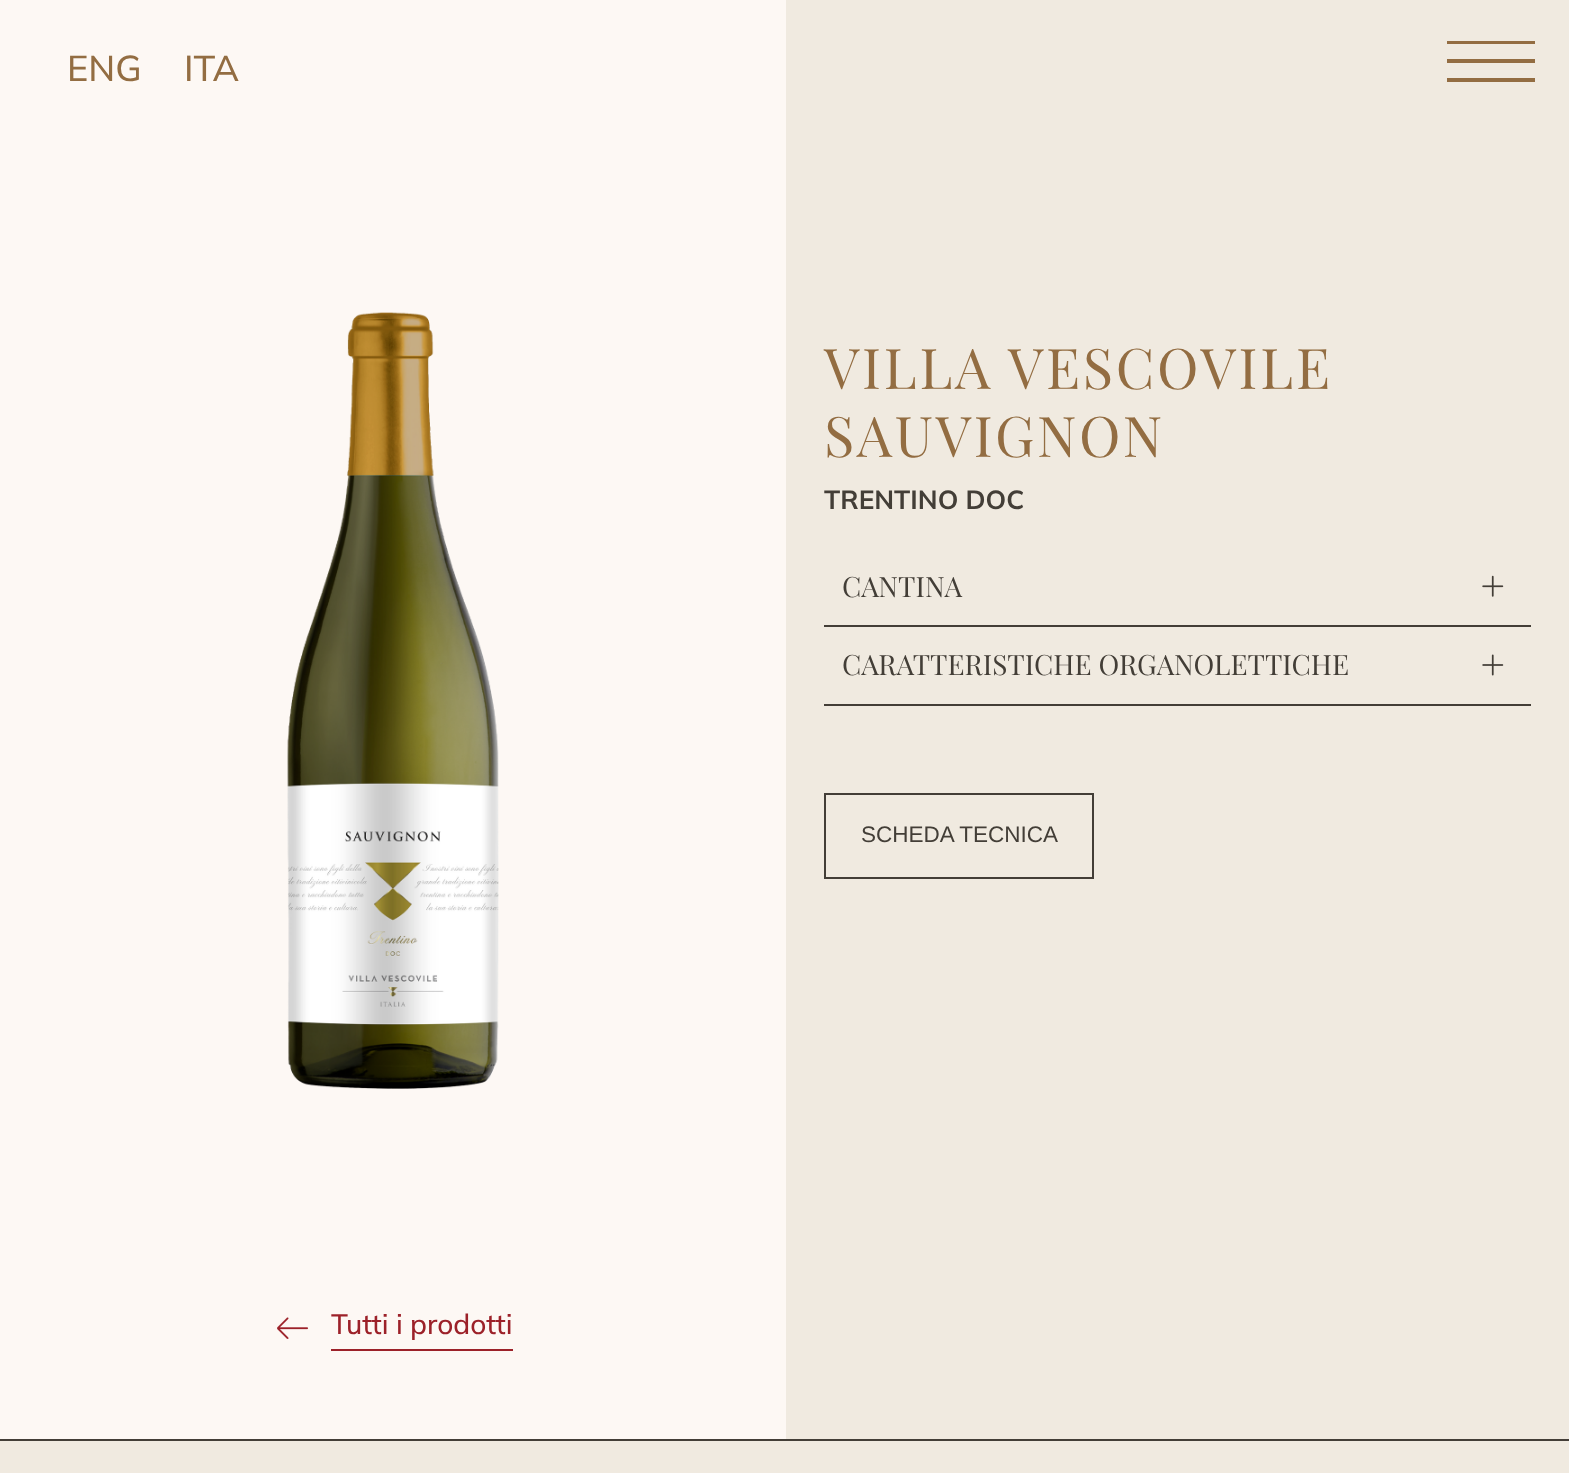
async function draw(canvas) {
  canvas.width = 1569
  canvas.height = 1473
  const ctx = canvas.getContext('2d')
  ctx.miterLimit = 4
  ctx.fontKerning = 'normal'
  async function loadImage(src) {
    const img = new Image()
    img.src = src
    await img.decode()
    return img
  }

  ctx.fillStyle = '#fdf8f4'
  ctx.fillRect(0, 0, 1569, 1473)
  ctx.font = '500 36px Mulish'
  ctx.fillStyle = '#936d42'
  ctx.fillText('ENG', 67, 81)
  ctx.fillText('ITA', 184, 81)
  ctx.fillStyle = '#f0eae0'
  ctx.fillRect(786, 0, 783, 1439)
  ctx.fillStyle = '#936d42'
  ctx.fillRect(1447, 41, 88, 3)
  ctx.fillRect(1447, 78, 88, 4)
  ctx.fillRect(1447, 59, 88, 4)
  ctx.letterSpacing = '2.75px'
  ctx.font = '56px Playfair Display'
  ctx.fillText('VILLA VESCOVILE', 824, 389)
  ctx.fillText('SAUVIGNON', 824, 457)
  ctx.letterSpacing = '0px'
  ctx.font = 'bold 26.25px Mulish'
  ctx.fillStyle = '#433e37'
  ctx.fillText('TRENTINO DOC', 824, 509)
  ctx.fillRect(824, 625, 707, 2)
  ctx.font = '28px Playfair Display'
  ctx.fillText('CANTINA', 842, 597)
  ctx.drawImage(await loadImage('image0.png'), 1482, 575, 22, 22)
  ctx.fillRect(824, 704, 707, 2)
  ctx.fillText('CARATTERISTICHE ORGANOLETTICHE', 842, 675)
  ctx.drawImage(await loadImage('image1.png'), 1482, 654, 22, 22)
  ctx.strokeStyle = '#433e37'
  ctx.lineWidth = 2
  ctx.strokeRect(825, 794, 268, 84)
  ctx.font = '22.5px Liberation Sans'
  ctx.fillText('SCHEDA TECNICA', 861, 842)
  ctx.drawImage(await loadImage('image2.png'), 287, 312, 212, 777)
  ctx.drawImage(await loadImage('image3.png'), 277, 1317, 32, 22)
  ctx.font = '500 28px Mulish'
  ctx.fillStyle = '#9c2129'
  ctx.fillText('Tutti i prodotti', 331, 1334)
  ctx.fillRect(331, 1349, 182, 2)
  ctx.fillStyle = '#f0eae0'
  ctx.fillRect(0, 1441, 1569, 32)
  ctx.fillStyle = '#433e37'
  ctx.fillRect(0, 1439, 1569, 2)
}

draw(document.querySelector('canvas'))
